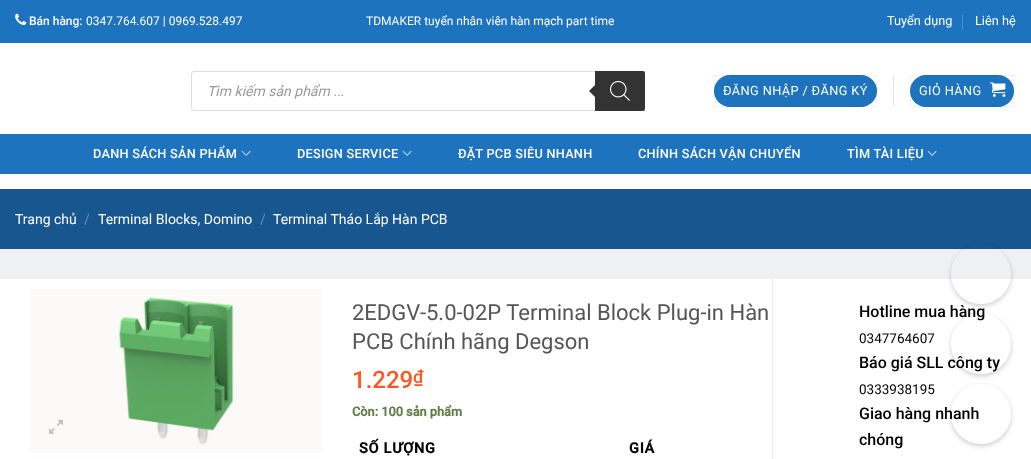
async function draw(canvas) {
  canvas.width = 1031
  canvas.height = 459
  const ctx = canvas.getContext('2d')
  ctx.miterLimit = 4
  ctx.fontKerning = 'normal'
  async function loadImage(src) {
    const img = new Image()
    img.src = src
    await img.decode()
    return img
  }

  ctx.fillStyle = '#fff'
  ctx.fillRect(0, 0, 1031, 459)
  ctx.fillStyle = '#1e73be'
  ctx.fillRect(0, 0, 1031, 43)
  ctx.drawImage(await loadImage('image0.png'), 15, 13, 12, 12)
  ctx.font = '500 12px Roboto'
  ctx.fillStyle = '#fff'
  ctx.fillText('Bán hàng:', 29, 25)
  ctx.font = '12px Roboto'
  ctx.fillText('0347.764.607 | 0969.528.497', 86, 25)
  ctx.fillText('TDMAKER tuyển nhân viên hàn mạch part time', 366, 25)
  ctx.font = '12.75px Roboto'
  ctx.fillText('Tuyển dụng', 887, 25)
  ctx.fillStyle = '#4b8fcb'
  ctx.fillRect(962, 15, 1, 15)
  ctx.fillStyle = '#fff'
  ctx.fillText('Liên hệ', 975, 25)
  ctx.beginPath()
  ctx.roundRect(191.5, 71.5, 453, 39, 2.5)
  ctx.strokeStyle = '#ddd'
  ctx.stroke()
  ctx.font = 'italic 14px Roboto'
  ctx.fillStyle = '#999'
  ctx.fillText('Tìm kiếm sản phẩm ...', 207, 96)
  ctx.fillStyle = '#333'
  ctx.beginPath()
  ctx.roundRect(595, 71, 50, 40, [0, 2, 2, 0])
  ctx.fill()
  ctx.beginPath()
  ctx.moveTo(597, 83)
  ctx.lineTo(597, 99)
  ctx.lineTo(589, 91)
  ctx.closePath()
  ctx.fill()
  ctx.drawImage(await loadImage('image1.png'), 610, 81, 20, 20)
  ctx.fillStyle = '#1e73be'
  ctx.beginPath()
  ctx.roundRect(714, 75, 163, 32, 16)
  ctx.fill()
  ctx.strokeStyle = '#0000000d'
  ctx.strokeRect(714.5, 75.5, 162, 31)
  ctx.letterSpacing = '0.4px'
  ctx.font = '12.75px Roboto'
  ctx.fillStyle = '#fff'
  ctx.fillText('ĐĂNG NHẬP / ĐĂNG KÝ', 723, 95)
  ctx.fillStyle = '#e6e6e6'
  ctx.fillRect(893, 76, 1, 30)
  ctx.fillStyle = '#1e73be'
  ctx.beginPath()
  ctx.roundRect(910, 75, 104, 32, 16)
  ctx.fill()
  ctx.strokeRect(910.5, 75.5, 103, 31)
  ctx.fillStyle = '#fff'
  ctx.fillText('GIỎ HÀNG', 919, 95)
  ctx.drawImage(await loadImage('image2.png'), 990, 82, 16, 15)
  ctx.fillStyle = '#1e73be'
  ctx.fillRect(0, 134, 1031, 40)
  ctx.letterSpacing = '0.25px'
  ctx.font = '500 12.75px Roboto'
  ctx.fillStyle = '#fff'
  ctx.fillText('DANH SÁCH SẢN PHẨM', 93, 158)
  ctx.drawImage(await loadImage('image3.png'), 241, 150, 10, 6)
  ctx.fillText('DESIGN SERVICE', 297, 158)
  ctx.drawImage(await loadImage('image3.png'), 402, 150, 10, 6)
  ctx.fillText('ĐẶT PCB SIÊU NHANH', 458, 158)
  ctx.fillText('CHÍNH SÁCH VẬN CHUYỂN', 638, 158)
  ctx.fillText('TÌM TÀI LIỆU', 847, 158)
  ctx.drawImage(await loadImage('image3.png'), 927, 150, 10, 6)
  ctx.fillStyle = '#17568f'
  ctx.fillRect(0, 189, 1031, 60)
  ctx.letterSpacing = '0px'
  ctx.font = '14px Roboto'
  ctx.fillStyle = '#fff'
  ctx.fillText('Trang chủ', 15, 224)
  ctx.fillStyle = '#6891b6'
  ctx.fillText('/', 84, 224)
  ctx.fillStyle = '#fff'
  ctx.fillText('Terminal Blocks, Domino', 98, 224)
  ctx.fillStyle = '#6891b6'
  ctx.fillText('/', 260, 224)
  ctx.fillStyle = '#fff'
  ctx.fillText('Terminal Tháo Lắp Hàn PCB', 273, 224)
  ctx.fillStyle = '#eff0f3'
  ctx.fillRect(0, 249, 1031, 30)
  ctx.save()
  ctx.beginPath()
  ctx.moveTo(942, 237)
  ctx.lineTo(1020, 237)
  ctx.lineTo(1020, 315)
  ctx.lineTo(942, 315)
  ctx.closePath()
  ctx.moveTo(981, 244)
  ctx.bezierCurveTo(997.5, 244, 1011, 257.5, 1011, 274)
  ctx.bezierCurveTo(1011, 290.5, 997.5, 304, 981, 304)
  ctx.bezierCurveTo(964.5, 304, 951, 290.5, 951, 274)
  ctx.bezierCurveTo(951, 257.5, 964.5, 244, 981, 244)
  ctx.closePath()
  ctx.clip('evenodd')
  ctx.fillStyle = '#00000033'
  ctx.filter = 'blur(2.5px)'
  ctx.beginPath()
  ctx.roundRect(951, 246, 60, 60, 30)
  ctx.fill()
  ctx.filter = 'none'
  ctx.restore()
  ctx.save()
  ctx.beginPath()
  ctx.moveTo(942, 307)
  ctx.lineTo(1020, 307)
  ctx.lineTo(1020, 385)
  ctx.lineTo(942, 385)
  ctx.closePath()
  ctx.moveTo(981, 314)
  ctx.bezierCurveTo(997.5, 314, 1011, 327.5, 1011, 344)
  ctx.bezierCurveTo(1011, 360.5, 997.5, 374, 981, 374)
  ctx.bezierCurveTo(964.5, 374, 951, 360.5, 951, 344)
  ctx.bezierCurveTo(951, 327.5, 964.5, 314, 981, 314)
  ctx.closePath()
  ctx.clip('evenodd')
  ctx.fillStyle = '#00000033'
  ctx.filter = 'blur(2.5px)'
  ctx.beginPath()
  ctx.roundRect(951, 316, 60, 60, 30)
  ctx.fill()
  ctx.filter = 'none'
  ctx.restore()
  ctx.save()
  ctx.beginPath()
  ctx.moveTo(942, 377)
  ctx.lineTo(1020, 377)
  ctx.lineTo(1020, 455)
  ctx.lineTo(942, 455)
  ctx.closePath()
  ctx.moveTo(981, 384)
  ctx.bezierCurveTo(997.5, 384, 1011, 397.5, 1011, 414)
  ctx.bezierCurveTo(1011, 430.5, 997.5, 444, 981, 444)
  ctx.bezierCurveTo(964.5, 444, 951, 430.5, 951, 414)
  ctx.bezierCurveTo(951, 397.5, 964.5, 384, 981, 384)
  ctx.closePath()
  ctx.clip('evenodd')
  ctx.fillStyle = '#00000033'
  ctx.filter = 'blur(2.5px)'
  ctx.beginPath()
  ctx.roundRect(951, 386, 60, 60, 30)
  ctx.fill()
  ctx.filter = 'none'
  ctx.restore()
  ctx.fillStyle = '#ececec'
  ctx.fillRect(772, 279, 1, 180)
  ctx.drawImage(await loadImage('image4.png'), 30, 289, 292, 164)
  ctx.drawImage(await loadImage('image5.png'), 49, 419, 14, 15)
  ctx.font = '22px Roboto'
  ctx.fillStyle = '#555'
  ctx.fillText('2EDGV-5.0-02P Terminal Block Plug-in Hàn', 352, 320)
  ctx.fillText('PCB Chính hãng Degson', 352, 349)
  ctx.font = '500 24px Roboto'
  ctx.fillStyle = '#ff5622'
  ctx.fillText('1.229', 352, 388)
  ctx.font = '500 18px Roboto'
  ctx.fillText('₫', 413, 383)
  ctx.font = 'bold 12.75px Roboto'
  ctx.fillStyle = '#627d47'
  ctx.fillText('Còn: 100 sản phẩm', 352, 416)
  ctx.letterSpacing = '0.75px'
  ctx.font = 'bold 14.5px Roboto'
  ctx.fillStyle = '#000'
  ctx.fillText('SỐ LƯỢNG', 359, 453)
  ctx.fillText('GIÁ', 629, 453)
  ctx.letterSpacing = '0px'
  ctx.font = '500 16px Roboto'
  ctx.fillText('Hotline mua hàng', 859, 317)
  ctx.font = '13.5px Roboto'
  ctx.fillText('0347764607', 859, 343)
  ctx.font = '500 16px Roboto'
  ctx.fillText('Báo giá SLL công ty', 859, 368)
  ctx.font = '13.5px Roboto'
  ctx.fillText('0333938195', 859, 394)
  ctx.font = '500 16px Roboto'
  ctx.fillText('Giao hàng nhanh', 859, 419)
  ctx.fillText('chóng', 859, 445)
}

draw(document.querySelector('canvas'))
